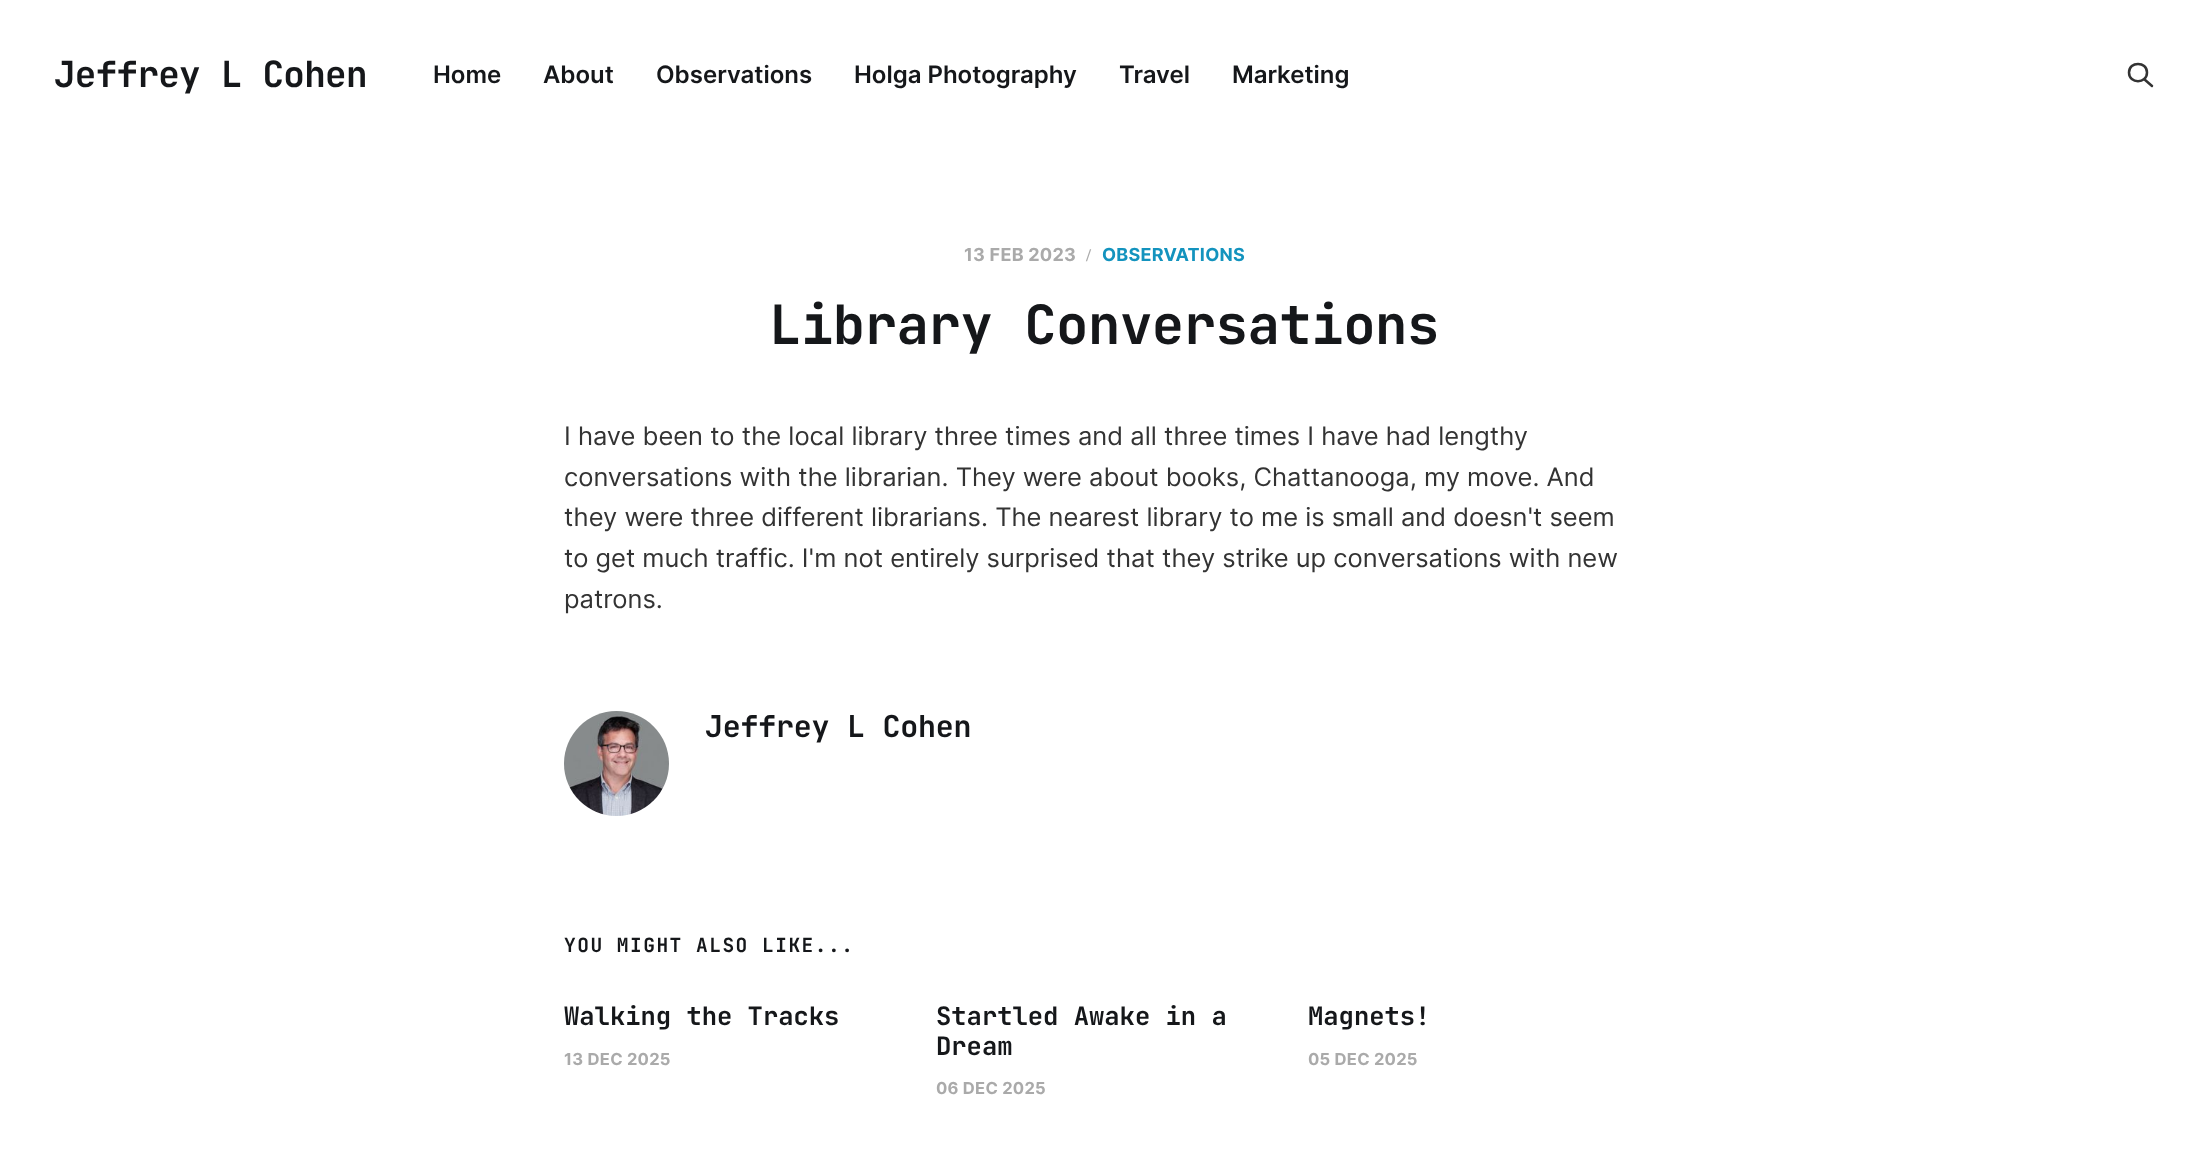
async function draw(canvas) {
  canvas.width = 2207
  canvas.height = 1174
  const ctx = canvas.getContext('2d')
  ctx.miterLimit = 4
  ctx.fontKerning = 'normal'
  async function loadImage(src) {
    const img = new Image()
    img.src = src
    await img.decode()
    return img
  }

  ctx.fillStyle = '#fff'
  ctx.fillRect(0, 0, 2207, 1174)
  ctx.letterSpacing = '-0.75px'
  ctx.font = 'bold 36px JetBrains Mono'
  ctx.fillStyle = '#15171a'
  ctx.fillText('Jeffrey L Cohen', 54, 87)
  ctx.letterSpacing = '0px'
  ctx.font = '600 24px Inter'
  ctx.fillText('Home', 433, 83)
  ctx.fillText('About', 543, 83)
  ctx.fillText('Observations', 656, 83)
  ctx.fillText('Holga Photography', 854, 83)
  ctx.fillText('Travel', 1119, 83)
  ctx.fillText('Marketing', 1232, 83)
  ctx.beginPath()
  ctx.moveTo(2152, 86)
  ctx.lineTo(2144, 79)
  ctx.moveTo(2147, 72.5)
  ctx.bezierCurveTo(2147, 84, 2129, 84, 2129, 72.5)
  ctx.bezierCurveTo(2129, 61, 2147, 61, 2147, 72.5)
  ctx.closePath()
  ctx.strokeStyle = '#333'
  ctx.lineWidth = 2.5
  ctx.lineCap = 'round'
  ctx.lineJoin = 'round'
  ctx.stroke()
  ctx.letterSpacing = '0.25px'
  ctx.font = 'bold 18px Inter'
  ctx.fillStyle = '#aaa'
  ctx.fillText('13 FEB 2023', 964, 261)
  ctx.font = 'bold 18px Liberation Serif'
  ctx.fillText('/', 1086, 261)
  ctx.font = 'bold 18px Inter'
  ctx.fillStyle = '#1393be'
  ctx.fillText('OBSERVATIONS', 1102, 261)
  ctx.letterSpacing = '-0.5px'
  ctx.font = 'bold 54px JetBrains Mono'
  ctx.fillStyle = '#15171a'
  ctx.fillText('Library Conversations', 769, 344)
  ctx.letterSpacing = '0px'
  ctx.font = '25.5px Inter'
  ctx.fillStyle = '#333'
  ctx.fillText('I have been to the local library three times and all three times I have had lengthy', 564, 445)
  ctx.fillText('conversations with the librarian. They were about books, Chattanooga, my move. And', 564, 486)
  ctx.fillText('they were three different librarians. The nearest library to me is small and doesn\'t seem', 564, 526)
  ctx.fillText('to get much traffic. I\'m not entirely surprised that they strike up conversations with new', 564, 567)
  ctx.fillText('patrons.', 564, 608)
  ctx.fillStyle = '#f1f1f1'
  ctx.beginPath()
  ctx.arc(616.5, 763.5, 52.5, 0, 2 * Math.PI)
  ctx.fill()
  ctx.drawImage(await loadImage('image0.png'), 564, 711, 105, 105)
  ctx.letterSpacing = '-0.25px'
  ctx.font = 'bold 30px JetBrains Mono'
  ctx.fillStyle = '#15171a'
  ctx.fillText('Jeffrey L Cohen', 705, 737)
  ctx.letterSpacing = '1.5px'
  ctx.font = 'bold 19.5px JetBrains Mono'
  ctx.fillText('YOU MIGHT ALSO LIKE...', 564, 952)
  ctx.letterSpacing = '0px'
  ctx.font = 'bold 25.5px JetBrains Mono'
  ctx.fillText('Walking the Tracks', 564, 1025)
  ctx.letterSpacing = '0.25px'
  ctx.font = 'bold 16.5px Inter'
  ctx.fillStyle = '#aaa'
  ctx.fillText('13 DEC 2025', 564, 1065)
  ctx.letterSpacing = '0px'
  ctx.font = 'bold 25.5px JetBrains Mono'
  ctx.fillStyle = '#15171a'
  ctx.fillText('Startled Awake in a', 936, 1025)
  ctx.fillText('Dream', 936, 1055)
  ctx.letterSpacing = '0.25px'
  ctx.font = 'bold 16.5px Inter'
  ctx.fillStyle = '#aaa'
  ctx.fillText('06 DEC 2025', 936, 1094)
  ctx.letterSpacing = '0px'
  ctx.font = 'bold 25.5px JetBrains Mono'
  ctx.fillStyle = '#15171a'
  ctx.fillText('Magnets!', 1308, 1025)
  ctx.letterSpacing = '0.25px'
  ctx.font = 'bold 16.5px Inter'
  ctx.fillStyle = '#aaa'
  ctx.fillText('05 DEC 2025', 1308, 1065)
}

draw(document.querySelector('canvas'))
